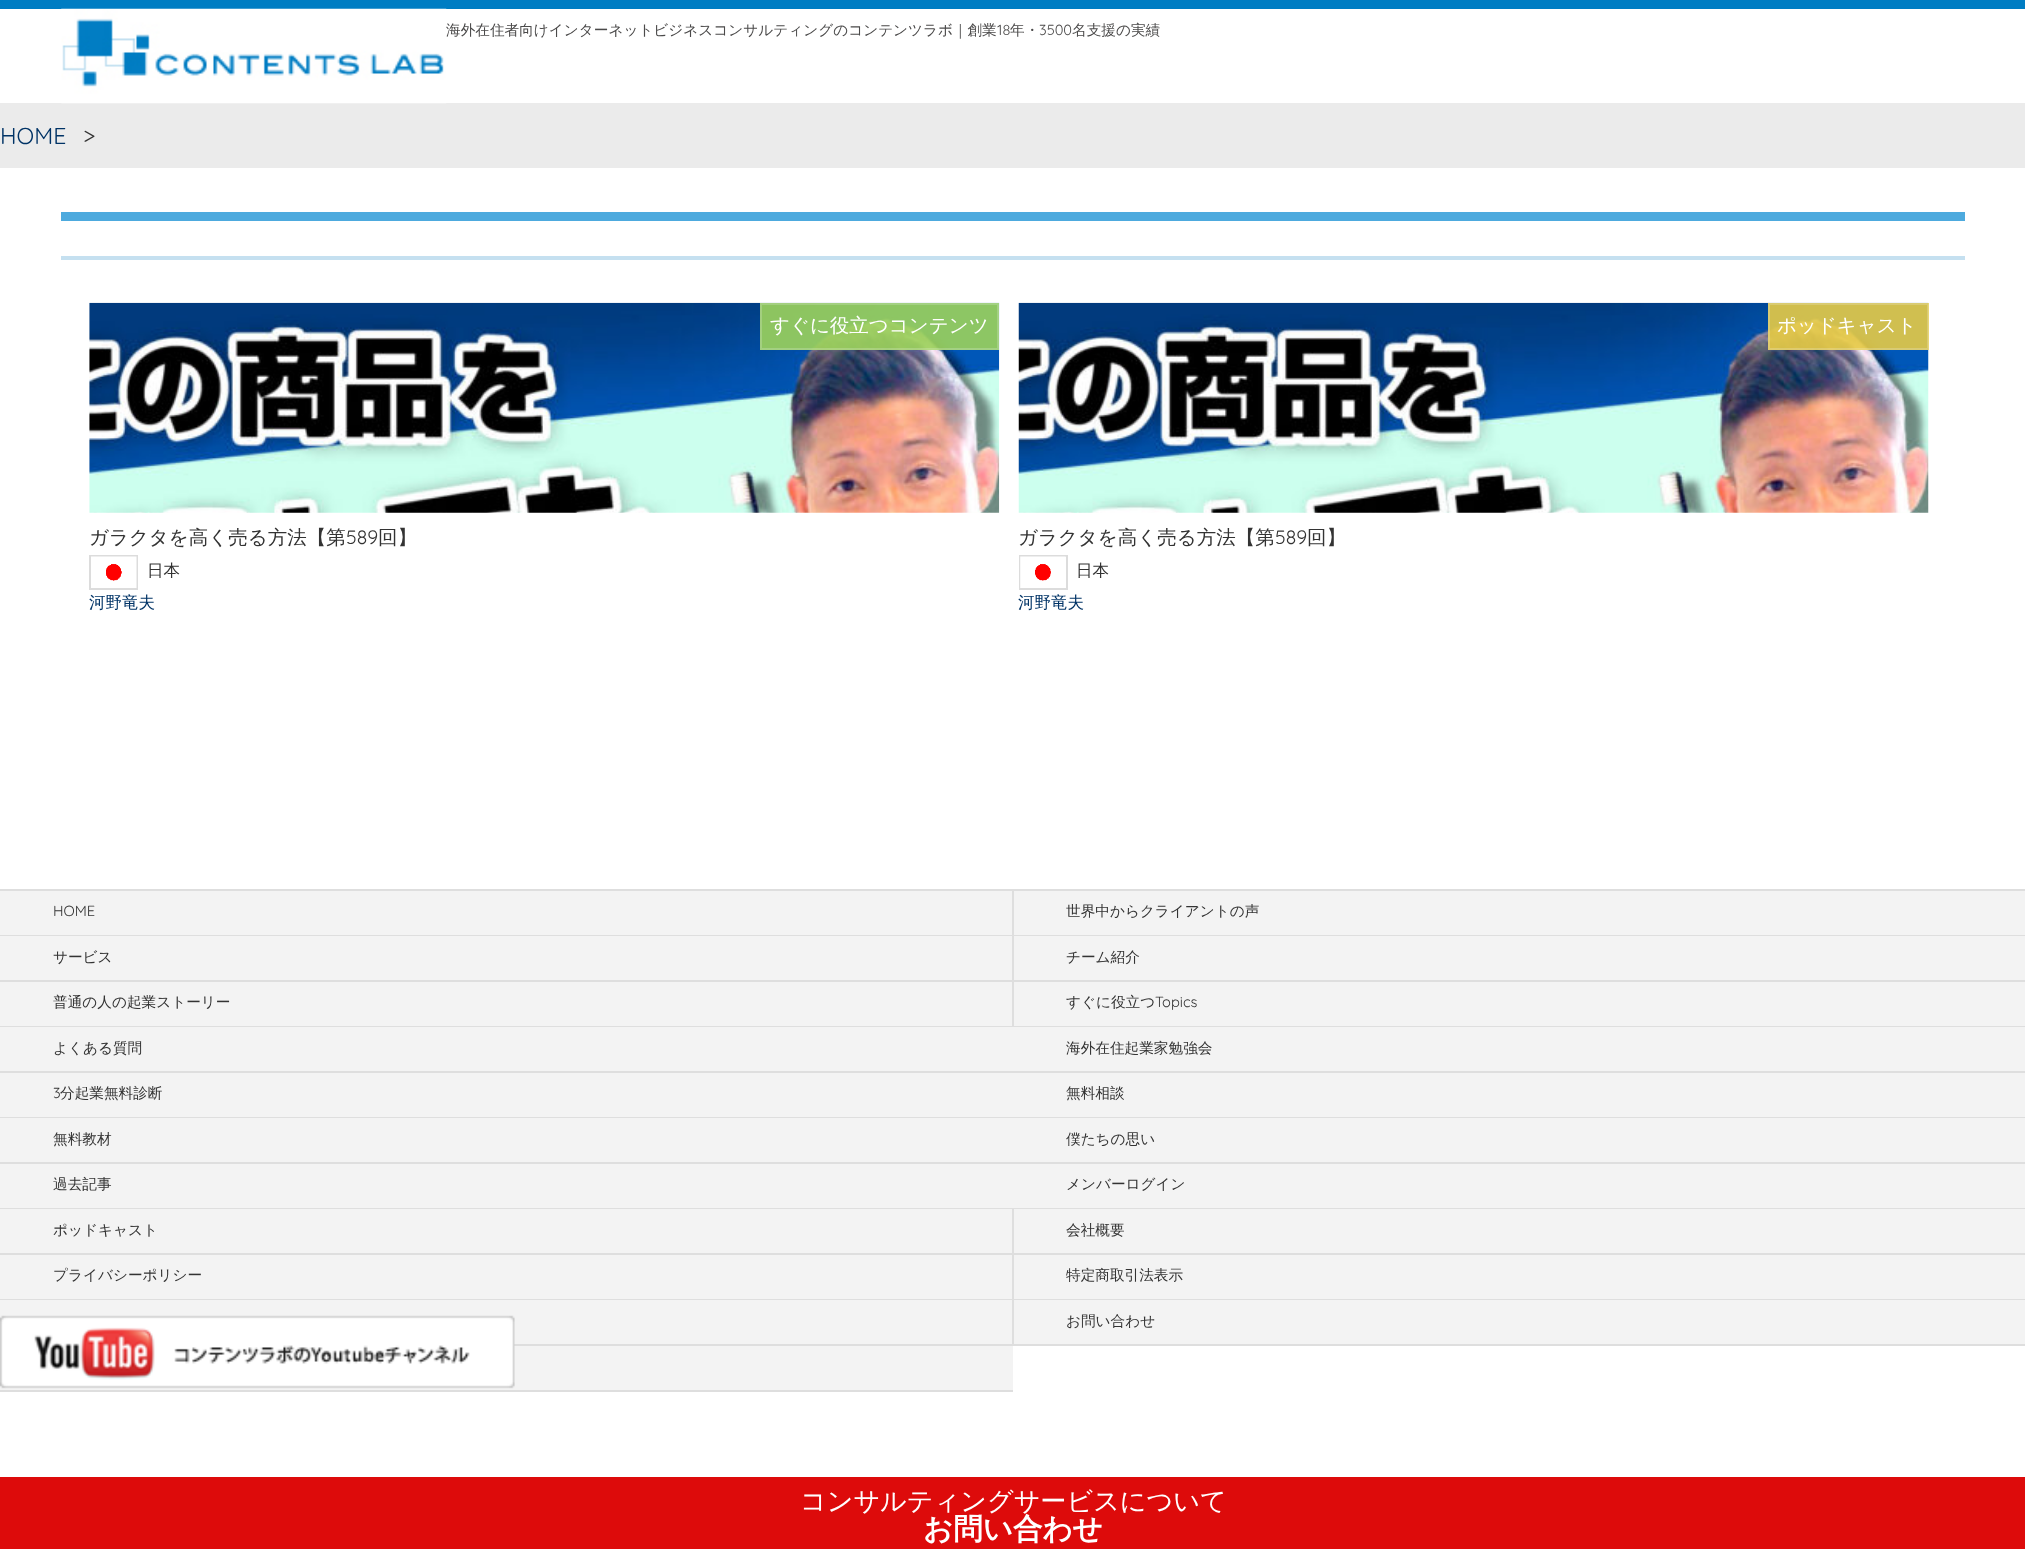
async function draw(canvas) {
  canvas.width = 2025
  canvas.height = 1549
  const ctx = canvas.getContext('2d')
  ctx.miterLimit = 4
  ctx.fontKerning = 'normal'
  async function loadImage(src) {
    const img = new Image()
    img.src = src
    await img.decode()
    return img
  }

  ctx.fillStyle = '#fff'
  ctx.fillRect(0, 0, 2025, 1549)
  ctx.fillStyle = '#007dc3'
  ctx.fillRect(0, 0, 2025, 9)
  ctx.fillStyle = '#ebebeb'
  ctx.fillRect(0, 103, 2025, 65)
  ctx.drawImage(await loadImage('image0.png'), 61, 8, 386, 96)
  ctx.font = '500 14.65px WenQuanYi Zen Hei'
  ctx.fillStyle = '#4b4a4a'
  ctx.fillText('海外在住者向けインターネットビジネスコンサルティングのコンテンツラボ｜創業', 446, 35)
  ctx.font = '14.65px Quicksand'
  ctx.fillText('18', 997, 35)
  ctx.font = '500 14.65px WenQuanYi Zen Hei'
  ctx.fillText('年・', 1010, 35)
  ctx.font = '14.65px Quicksand'
  ctx.fillText('3500', 1039, 35)
  ctx.font = '500 14.65px WenQuanYi Zen Hei'
  ctx.fillText('名支援の実績', 1072, 35)
  ctx.font = '23px Quicksand'
  ctx.fillStyle = '#036'
  ctx.fillText('HOME', 0, 144)
  ctx.fillStyle = '#333'
  ctx.fillText('>', 83, 144)
  ctx.fillStyle = '#4daade'
  ctx.fillRect(61, 212, 1904, 9)
  ctx.fillStyle = '#c5e0f0'
  ctx.fillRect(61, 256, 1904, 4)
  ctx.drawImage(await loadImage('image1.png'), 89, 302, 911, 211)
  ctx.fillStyle = '#9cd35be6'
  ctx.fillRect(760, 303, 239, 47)
  ctx.strokeStyle = '#ffffff33'
  ctx.lineWidth = 2
  ctx.strokeRect(761, 304, 237, 45)
  ctx.font = '500 19.5px WenQuanYi Zen Hei'
  ctx.fillStyle = '#fff'
  ctx.fillText('すぐに役立つコンテンツ', 770, 332)
  ctx.fillStyle = '#333'
  ctx.fillText('ガラクタを高く売る方法【第', 89, 544)
  ctx.font = '19.5px Quicksand'
  ctx.fillText('589', 346, 544)
  ctx.font = '500 19.5px WenQuanYi Zen Hei'
  ctx.fillText('回】', 378, 544)
  ctx.strokeStyle = '#dcdcdc'
  ctx.strokeRect(90, 556, 47, 33)
  ctx.drawImage(await loadImage('image2.png'), 91, 556, 46, 32)
  ctx.font = '500 16.5px WenQuanYi Zen Hei'
  ctx.fillText('日本', 147, 576)
  ctx.fillStyle = '#036'
  ctx.fillText('河野竜夫', 89, 608)
  ctx.drawImage(await loadImage('image3.png'), 1018, 302, 911, 211)
  ctx.fillStyle = '#e7cb45e6'
  ctx.fillRect(1768, 303, 161, 47)
  ctx.strokeStyle = '#ffffff33'
  ctx.strokeRect(1769, 304, 159, 45)
  ctx.font = '500 19.5px WenQuanYi Zen Hei'
  ctx.fillStyle = '#fff'
  ctx.fillText('ポッドキャスト', 1777, 332)
  ctx.fillStyle = '#333'
  ctx.fillText('ガラクタを高く売る方法【第', 1018, 544)
  ctx.font = '19.5px Quicksand'
  ctx.fillText('589', 1275, 544)
  ctx.font = '500 19.5px WenQuanYi Zen Hei'
  ctx.fillText('回】', 1307, 544)
  ctx.strokeStyle = '#dcdcdc'
  ctx.strokeRect(1020, 556, 47, 33)
  ctx.drawImage(await loadImage('image4.png'), 1020, 556, 46, 32)
  ctx.font = '500 16.5px WenQuanYi Zen Hei'
  ctx.fillText('日本', 1076, 576)
  ctx.fillStyle = '#036'
  ctx.fillText('河野竜夫', 1018, 608)
  ctx.fillStyle = '#dedede'
  ctx.fillRect(0, 889, 2025, 2)
  ctx.fillStyle = '#f3f3f3'
  ctx.fillRect(0, 891, 1012, 44)
  ctx.fillStyle = '#dedede'
  ctx.fillRect(0, 935, 2025, 1)
  ctx.font = '14.65px Quicksand'
  ctx.fillStyle = '#333'
  ctx.fillText('HOME', 53, 916)
  ctx.fillStyle = '#f3f3f3'
  ctx.fillRect(1014, 891, 1011, 44)
  ctx.fillStyle = '#dedede'
  ctx.fillRect(1012, 891, 2, 45)
  ctx.font = '500 14.65px WenQuanYi Zen Hei'
  ctx.fillStyle = '#333'
  ctx.fillText('世界中からクライアントの声', 1066, 916)
  ctx.fillStyle = '#f3f3f3'
  ctx.fillRect(0, 936, 1012, 44)
  ctx.fillStyle = '#dedede'
  ctx.fillRect(0, 980, 2025, 2)
  ctx.fillStyle = '#333'
  ctx.fillText('サービス', 53, 962)
  ctx.fillStyle = '#f3f3f3'
  ctx.fillRect(1014, 936, 1011, 44)
  ctx.fillStyle = '#dedede'
  ctx.fillRect(1012, 936, 2, 46)
  ctx.fillStyle = '#333'
  ctx.fillText('チーム紹介', 1066, 962)
  ctx.fillStyle = '#f3f3f3'
  ctx.fillRect(0, 982, 1012, 44)
  ctx.fillStyle = '#dedede'
  ctx.fillRect(0, 1026, 2025, 1)
  ctx.fillStyle = '#333'
  ctx.fillText('普通の人の起業ストーリー', 53, 1007)
  ctx.fillStyle = '#f3f3f3'
  ctx.fillRect(1014, 982, 1011, 44)
  ctx.fillStyle = '#dedede'
  ctx.fillRect(1012, 982, 2, 45)
  ctx.fillStyle = '#333'
  ctx.fillText('すぐに役立つ', 1066, 1007)
  ctx.font = '14.65px Quicksand'
  ctx.fillText('Topics', 1155, 1007)
  ctx.fillStyle = '#f3f3f3'
  ctx.fillRect(0, 1027, 2025, 44)
  ctx.fillStyle = '#dedede'
  ctx.fillRect(0, 1071, 2025, 2)
  ctx.font = '500 14.65px WenQuanYi Zen Hei'
  ctx.fillStyle = '#333'
  ctx.fillText('よくある質問', 53, 1053)
  ctx.fillText('海外在住起業家勉強会', 1066, 1053)
  ctx.fillStyle = '#f3f3f3'
  ctx.fillRect(0, 1073, 2025, 44)
  ctx.fillStyle = '#dedede'
  ctx.fillRect(0, 1117, 2025, 1)
  ctx.font = '14.65px Quicksand'
  ctx.fillStyle = '#333'
  ctx.fillText('3', 53, 1098)
  ctx.font = '500 14.65px WenQuanYi Zen Hei'
  ctx.fillText('分起業無料診断', 60, 1098)
  ctx.fillText('無料相談', 1066, 1098)
  ctx.fillStyle = '#f3f3f3'
  ctx.fillRect(0, 1118, 2025, 44)
  ctx.fillStyle = '#dedede'
  ctx.fillRect(0, 1162, 2025, 2)
  ctx.fillStyle = '#333'
  ctx.fillText('無料教材', 53, 1144)
  ctx.fillText('僕たちの思い', 1066, 1144)
  ctx.fillStyle = '#f3f3f3'
  ctx.fillRect(0, 1164, 2025, 44)
  ctx.fillStyle = '#dedede'
  ctx.fillRect(0, 1208, 2025, 1)
  ctx.fillStyle = '#333'
  ctx.fillText('過去記事', 53, 1189)
  ctx.fillText('メンバーログイン', 1066, 1189)
  ctx.fillStyle = '#f3f3f3'
  ctx.fillRect(0, 1209, 1012, 44)
  ctx.fillStyle = '#dedede'
  ctx.fillRect(0, 1253, 2025, 2)
  ctx.fillStyle = '#333'
  ctx.fillText('ポッドキャスト', 53, 1235)
  ctx.fillStyle = '#f3f3f3'
  ctx.fillRect(1014, 1209, 1011, 44)
  ctx.fillStyle = '#dedede'
  ctx.fillRect(1012, 1209, 2, 46)
  ctx.fillStyle = '#333'
  ctx.fillText('会社概要', 1066, 1235)
  ctx.fillStyle = '#f3f3f3'
  ctx.fillRect(0, 1255, 1012, 44)
  ctx.fillStyle = '#dedede'
  ctx.fillRect(0, 1299, 2025, 1)
  ctx.fillStyle = '#333'
  ctx.fillText('プライバシーポリシー', 53, 1280)
  ctx.fillStyle = '#f3f3f3'
  ctx.fillRect(1014, 1255, 1011, 44)
  ctx.fillStyle = '#dedede'
  ctx.fillRect(1012, 1255, 2, 45)
  ctx.fillStyle = '#333'
  ctx.fillText('特定商取引法表示', 1066, 1280)
  ctx.fillStyle = '#f3f3f3'
  ctx.fillRect(0, 1300, 1012, 44)
  ctx.fillStyle = '#dedede'
  ctx.fillRect(514, 1344, 1511, 2)
  ctx.fillStyle = '#f3f3f3'
  ctx.fillRect(1014, 1300, 1011, 44)
  ctx.fillStyle = '#dedede'
  ctx.fillRect(1012, 1300, 2, 46)
  ctx.fillStyle = '#333'
  ctx.fillText('お問い合わせ', 1066, 1326)
  ctx.fillStyle = '#f3f3f3'
  ctx.fillRect(0, 1346, 1013, 44)
  ctx.fillStyle = '#dedede'
  ctx.fillRect(0, 1390, 1013, 2)
  ctx.drawImage(await loadImage('image5.png'), 0, 1315, 515, 74)
  ctx.fillStyle = '#dd0b0b'
  ctx.fillRect(0, 1477, 2025, 72)
  ctx.font = '500 26.1px WenQuanYi Zen Hei'
  ctx.fillStyle = '#fff'
  ctx.fillText('コンサルティングサービスについて', 800, 1510)
  ctx.font = 'bold 29.5px WenQuanYi Zen Hei'
  ctx.fillText('お問い合わせ', 923, 1539)
}

draw(document.querySelector('canvas'))
